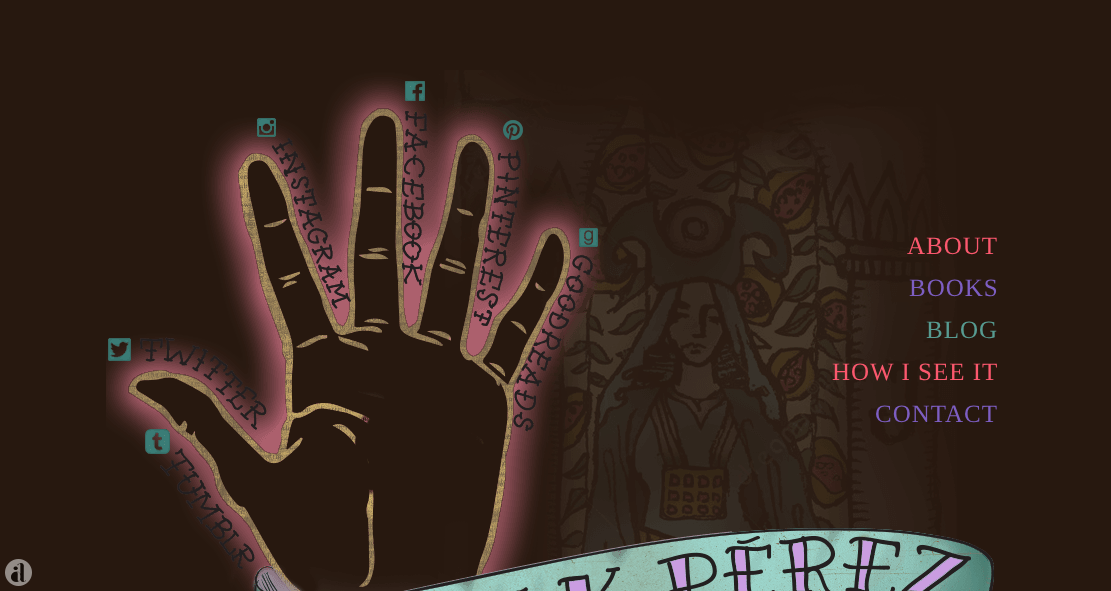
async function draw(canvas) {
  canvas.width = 1111
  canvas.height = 591
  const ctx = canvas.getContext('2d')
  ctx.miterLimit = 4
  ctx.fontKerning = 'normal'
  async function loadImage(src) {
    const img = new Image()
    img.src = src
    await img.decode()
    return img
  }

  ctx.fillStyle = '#27180f'
  ctx.fillRect(0, 0, 1111, 591)
  ctx.drawImage(await loadImage('image0.png'), 106, 70, 888, 521)
  ctx.letterSpacing = '1px'
  ctx.font = '25px Liberation Serif'
  ctx.fillStyle = '#fb586e'
  ctx.fillText('ABOUT', 907, 254)
  ctx.fillStyle = '#7d5ec2'
  ctx.fillText('BOOKS', 909, 296)
  ctx.fillStyle = '#579b91'
  ctx.fillText('BLOG', 926, 338)
  ctx.fillStyle = '#fb586e'
  ctx.fillText('HOW I SEE IT', 832, 380)
  ctx.fillStyle = '#7d5ec2'
  ctx.fillText('CONTACT', 875, 422)
  ctx.drawImage(await loadImage('image1.png'), 5, 559, 27, 27)
}

draw(document.querySelector('canvas'))
